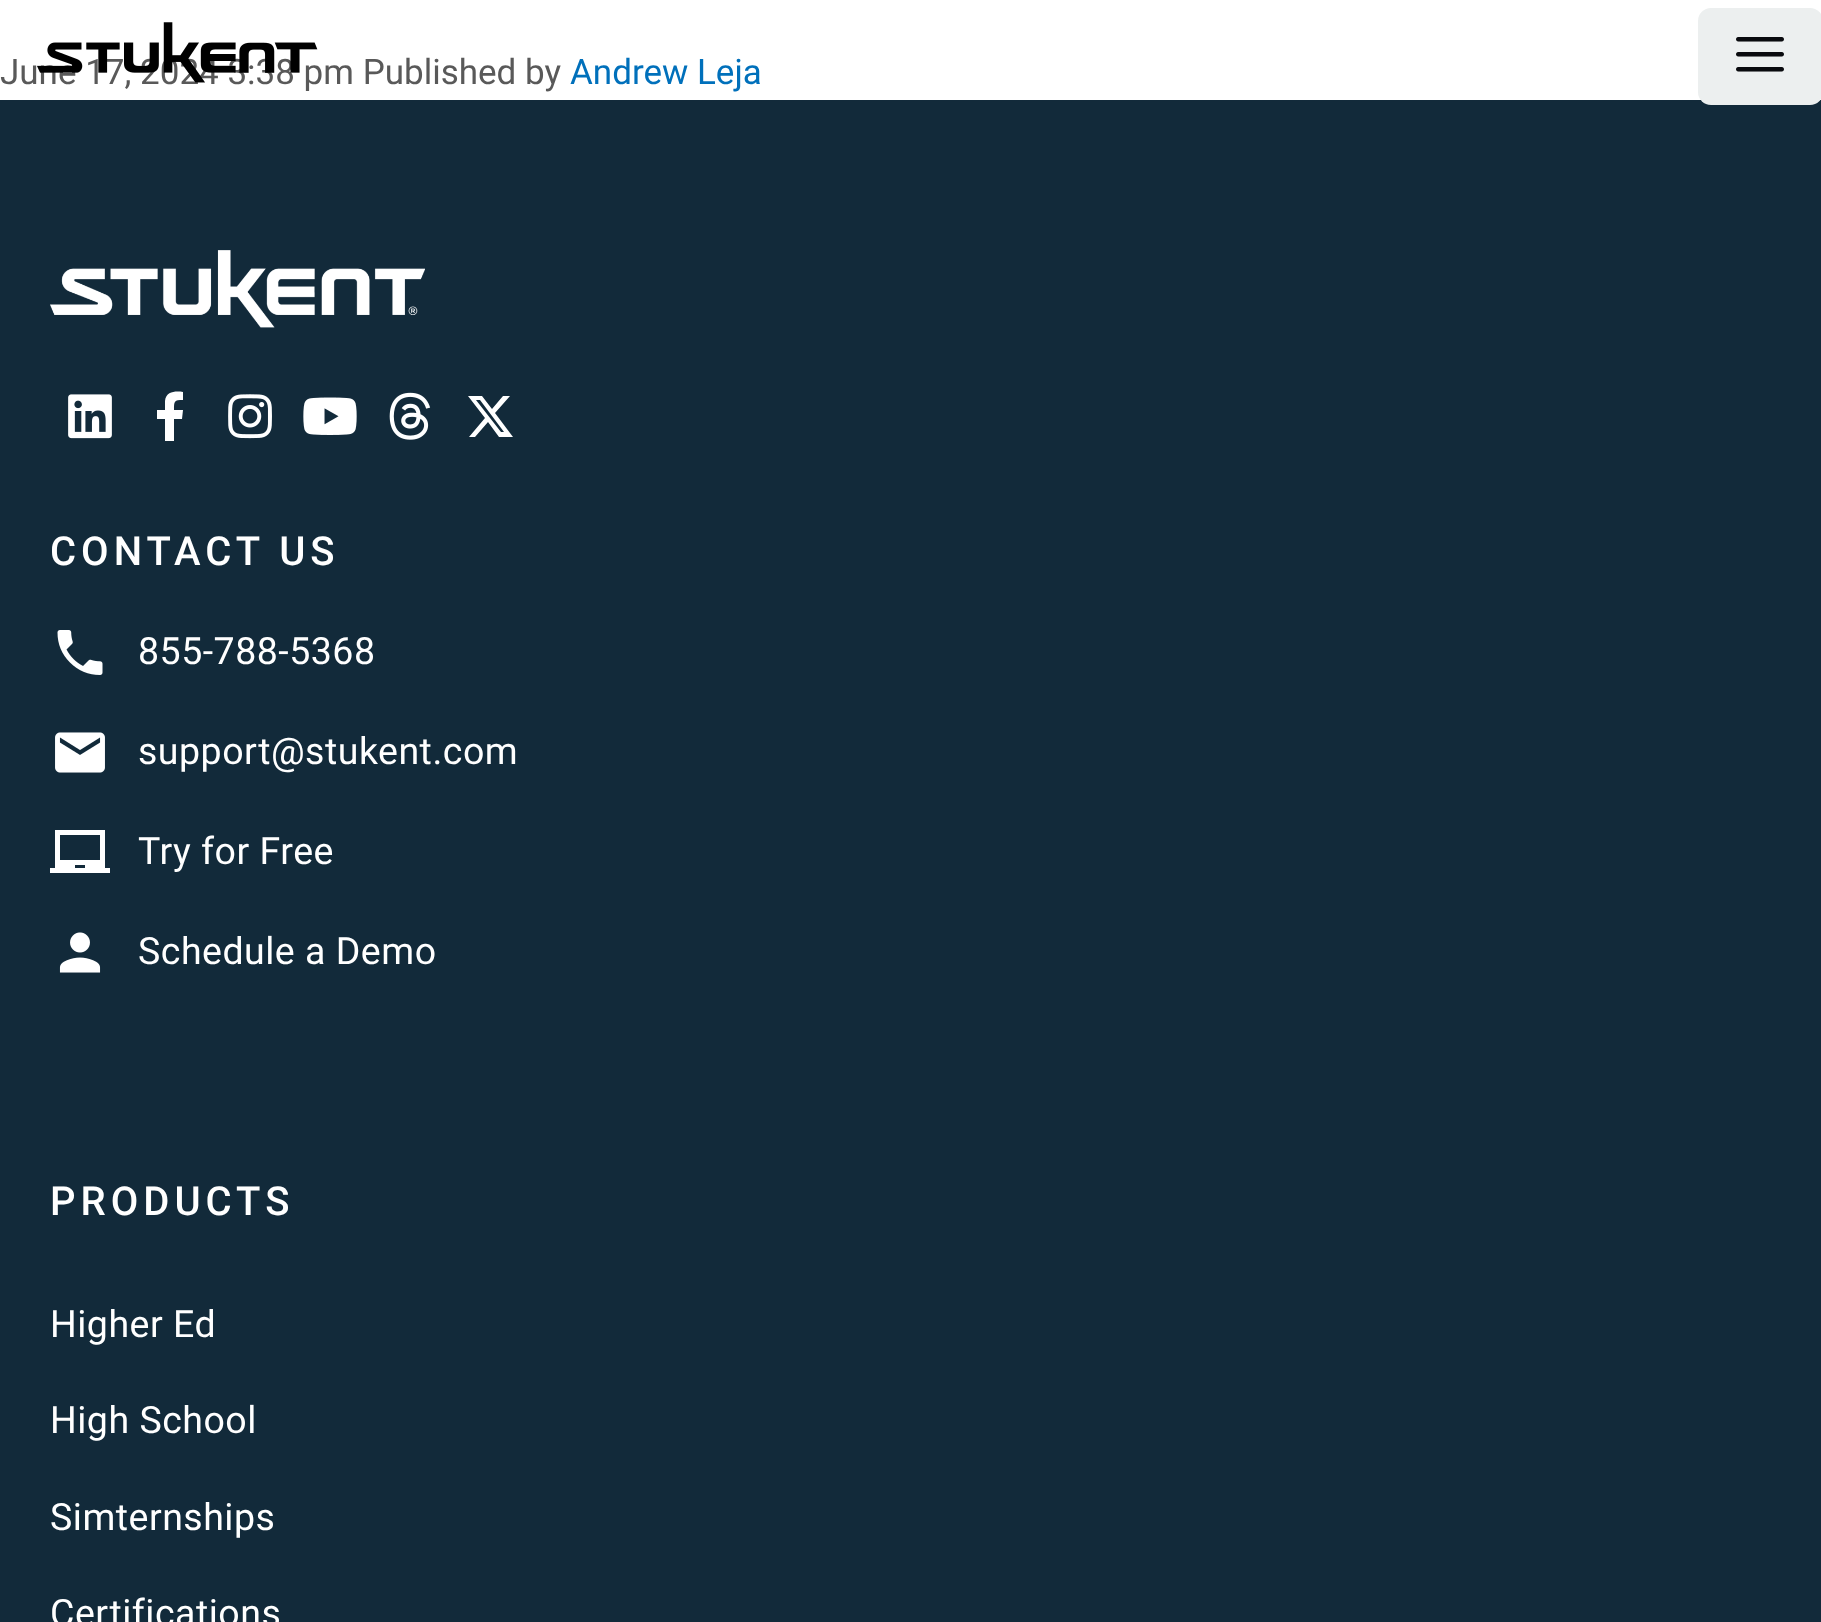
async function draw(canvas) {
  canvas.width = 1821
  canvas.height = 1622
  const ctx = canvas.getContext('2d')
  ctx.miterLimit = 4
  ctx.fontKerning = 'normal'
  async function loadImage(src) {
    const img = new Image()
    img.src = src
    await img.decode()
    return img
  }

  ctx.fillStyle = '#fff'
  ctx.fillRect(0, 0, 1821, 1622)
  ctx.font = '35px Roboto'
  ctx.fillStyle = '#595959'
  ctx.fillText('June 17, 2024 3:38 pm Published by', 0, 84)
  ctx.drawImage(await loadImage('image0.png'), 37, 22, 281, 61)
  ctx.fillStyle = '#122a3a'
  ctx.fillRect(0, 100, 1821, 1522)
  ctx.fillStyle = '#ecefef'
  ctx.beginPath()
  ctx.roundRect(1698, 8, 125, 97, 13)
  ctx.fill()
  ctx.drawImage(await loadImage('image1.png'), 1736, 37, 48, 35)
  ctx.fillStyle = '#0070bb'
  ctx.fillText('Andrew Leja', 570, 84)
  ctx.drawImage(await loadImage('image2.png'), 50, 250, 375, 78)
  ctx.drawImage(await loadImage('image3.png'), 68, 394, 44, 45)
  ctx.fillStyle = '#fff'
  ctx.beginPath()
  ctx.moveTo(182, 419)
  ctx.lineTo(174, 419)
  ctx.lineTo(174, 441)
  ctx.lineTo(165, 441)
  ctx.lineTo(165, 419)
  ctx.lineTo(157, 419)
  ctx.lineTo(157, 410)
  ctx.lineTo(165, 410)
  ctx.lineTo(165, 401)
  ctx.bezierCurveTo(166, 391, 176, 391, 183, 392)
  ctx.lineTo(183, 400)
  ctx.bezierCurveTo(174, 400, 174, 401, 174, 410)
  ctx.lineTo(183, 410)
  ctx.closePath()
  ctx.fill()
  ctx.drawImage(await loadImage('image4.png'), 228, 394, 44, 45)
  ctx.drawImage(await loadImage('image5.png'), 303, 397, 54, 38)
  ctx.drawImage(await loadImage('image6.png'), 389, 392, 42, 48)
  ctx.beginPath()
  ctx.moveTo(503, 396)
  ctx.lineTo(510, 396)
  ctx.lineTo(495, 413)
  ctx.lineTo(513, 437)
  ctx.lineTo(499, 437)
  ctx.lineTo(488, 422)
  ctx.lineTo(475, 437)
  ctx.lineTo(469, 437)
  ctx.lineTo(485, 418)
  ctx.lineTo(468, 396)
  ctx.lineTo(482, 396)
  ctx.lineTo(492, 409)
  ctx.closePath()
  ctx.moveTo(501, 432)
  ctx.lineTo(504, 432)
  ctx.lineTo(480, 400)
  ctx.lineTo(476, 400)
  ctx.closePath()
  ctx.fill()
  ctx.letterSpacing = '5px'
  ctx.font = '500 40px Roboto'
  ctx.fillText('CONTACT US', 50, 565)
  ctx.drawImage(await loadImage('image7.png'), 57, 630, 46, 45)
  ctx.letterSpacing = '0.5px'
  ctx.font = '37.5px Roboto'
  ctx.fillText('855-788-5368', 138, 664)
  ctx.drawImage(await loadImage('image8.png'), 55, 732, 50, 41)
  ctx.fillText('support@stukent.com', 138, 764)
  ctx.beginPath()
  ctx.moveTo(100, 860)
  ctx.lineTo(100, 835)
  ctx.lineTo(60, 835)
  ctx.lineTo(60, 860)
  ctx.closePath()
  ctx.moveTo(85, 868)
  ctx.lineTo(85, 865)
  ctx.lineTo(75, 865)
  ctx.lineTo(75, 868)
  ctx.closePath()
  ctx.moveTo(105, 868)
  ctx.lineTo(110, 868)
  ctx.lineTo(110, 873)
  ctx.lineTo(50, 873)
  ctx.lineTo(50, 868)
  ctx.lineTo(55, 868)
  ctx.lineTo(55, 830)
  ctx.lineTo(105, 830)
  ctx.closePath()
  ctx.fill()
  ctx.fillText('Try for Free', 138, 864)
  ctx.drawImage(await loadImage('image9.png'), 59, 932, 42, 41)
  ctx.fillText('Schedule a Demo', 138, 964)
  ctx.letterSpacing = '5px'
  ctx.font = '500 40px Roboto'
  ctx.fillText('PRODUCTS', 50, 1215)
  ctx.letterSpacing = '0.5px'
  ctx.font = '37.5px Roboto'
  ctx.fillText('Higher Ed', 50, 1337)
  ctx.fillText('High School', 50, 1433)
  ctx.fillText('Simternships', 50, 1530)
  ctx.fillText('Certifications', 50, 1626)
}

draw(document.querySelector('canvas'))
